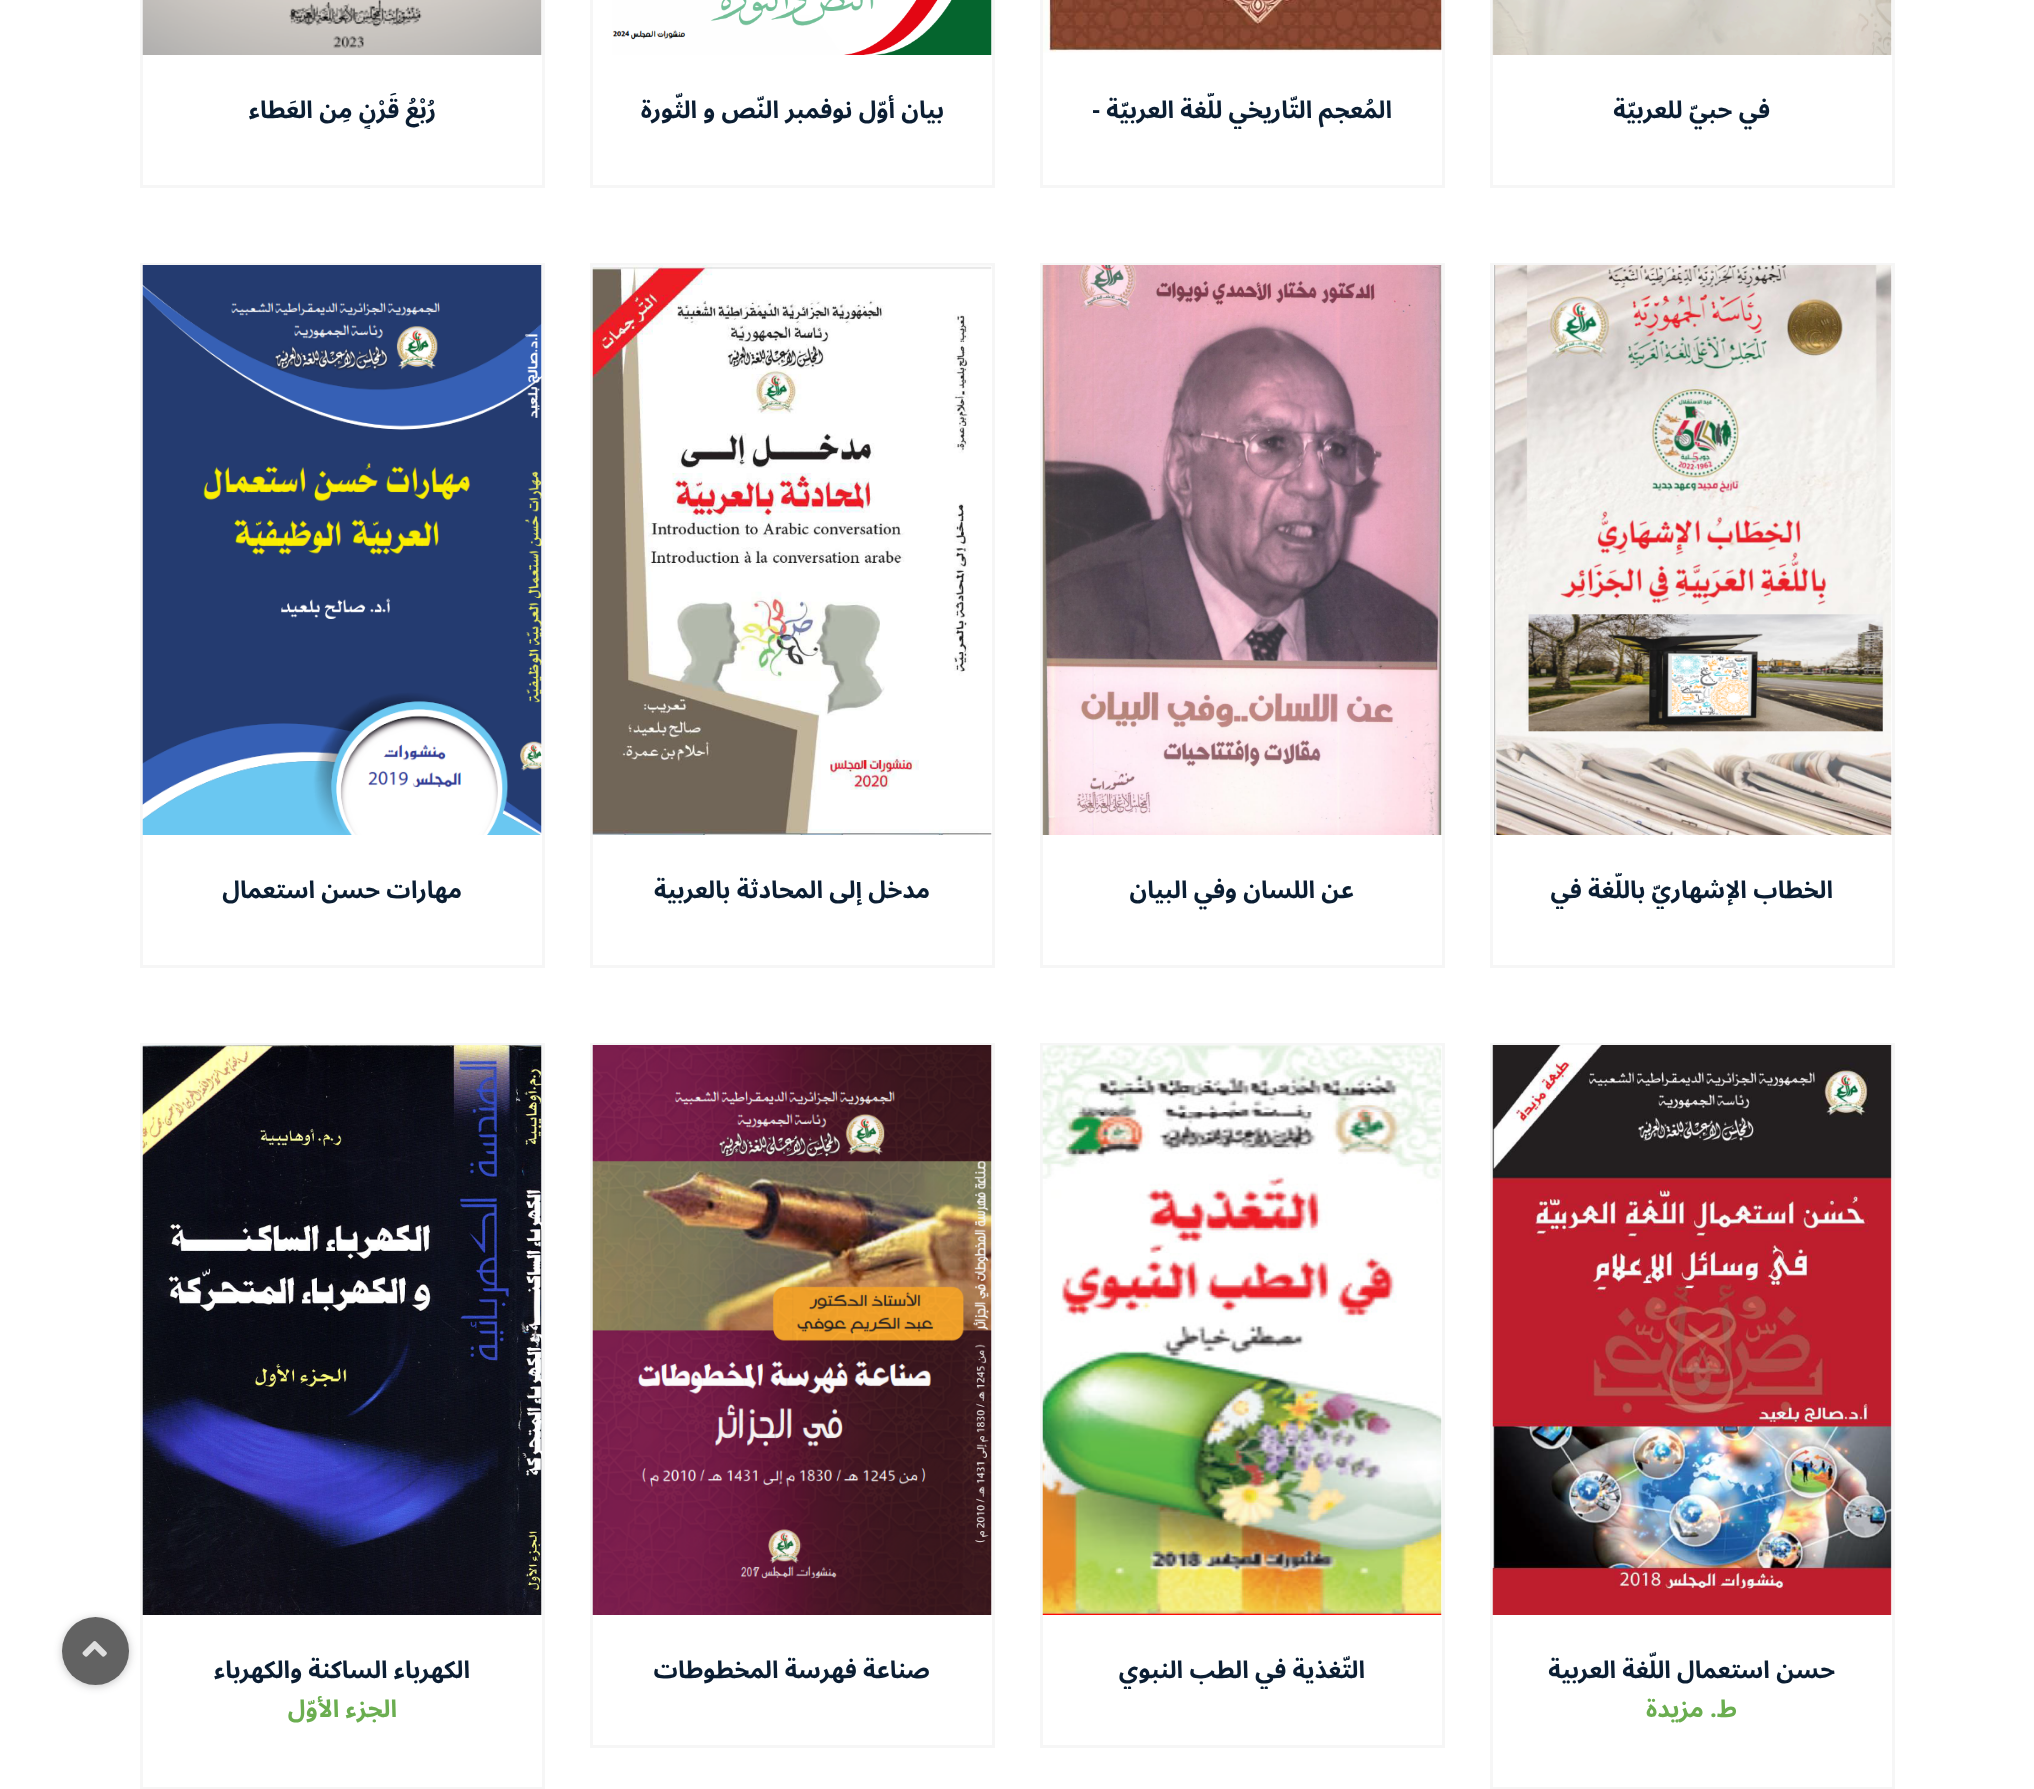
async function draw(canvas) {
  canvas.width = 2034
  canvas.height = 1789
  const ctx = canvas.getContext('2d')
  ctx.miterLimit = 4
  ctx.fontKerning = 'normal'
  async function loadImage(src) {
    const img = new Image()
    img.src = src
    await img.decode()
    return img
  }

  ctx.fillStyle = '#fff'
  ctx.fillRect(0, 0, 2034, 1789)
  ctx.strokeStyle = '#f6f6f6'
  ctx.lineWidth = 3
  ctx.strokeRect(1491.5, -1.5, 402, 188)
  ctx.drawImage(await loadImage('image0.png'), 1492, 0, 400, 55)
  ctx.direction = 'rtl'
  ctx.font = 'bold 24px Noto Sans Arabic'
  ctx.fillStyle = '#0b1e33'
  ctx.fillText('في حبيّ للعربيّة', 1770, 118)
  ctx.strokeRect(1041.5, -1.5, 402, 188)
  ctx.drawImage(await loadImage('image1.png'), 1043, 0, 399, 53)
  ctx.save()
  ctx.beginPath()
  ctx.rect(1088, 93, 309, 36)
  ctx.clip()
  ctx.fillText('المُعجم التّاريخي للّغة العربيّة -', 1392, 118)
  ctx.restore()
  ctx.strokeRect(591.5, -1.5, 402, 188)
  ctx.drawImage(await loadImage('image2.png'), 612, 0, 380, 55)
  ctx.fillText('بيان أوّل نوفمبر', 944, 118)
  ctx.fillText('النّص و الثّورة', 779, 118)
  ctx.strokeRect(141.5, -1.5, 402, 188)
  ctx.drawImage(await loadImage('image3.png'), 142, 0, 400, 55)
  ctx.save()
  ctx.beginPath()
  ctx.rect(188, 93, 309, 36)
  ctx.clip()
  ctx.fillText('رُبْعُ قَرْنٍ مِن العَطاء', 436, 118)
  ctx.restore()
  ctx.strokeRect(1491.5, 264.5, 402, 702)
  ctx.drawImage(await loadImage('image4.png'), 1493, 265, 399, 570)
  ctx.save()
  ctx.beginPath()
  ctx.rect(1538, 873, 309, 36)
  ctx.clip()
  ctx.fillText('الخطاب الإشهاريّ باللّغة في', 1833, 898)
  ctx.restore()
  ctx.strokeRect(1041.5, 264.5, 402, 702)
  ctx.drawImage(await loadImage('image5.png'), 1042, 265, 400, 570)
  ctx.fillText('عن اللسان وفي البيان', 1354, 898)
  ctx.strokeRect(591.5, 264.5, 402, 702)
  ctx.drawImage(await loadImage('image6.png'), 592, 265, 400, 570)
  ctx.fillText('مدخل إلى', 930, 898)
  ctx.fillText('المحادثة بالعربية', 823, 898)
  ctx.strokeRect(141.5, 264.5, 402, 702)
  ctx.drawImage(await loadImage('image7.png'), 142, 265, 400, 570)
  ctx.fillText('مهارات حسن استعمال', 462, 898)
  ctx.strokeRect(1491.5, 1044.5, 402, 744)
  ctx.drawImage(await loadImage('image8.png'), 1492, 1045, 400, 570)
  ctx.fillText('حسن استعمال اللّغة العربية', 1835, 1678)
  ctx.fillStyle = '#6bae50'
  ctx.fillText('ط. مزيدة', 1737, 1717)
  ctx.strokeRect(1041.5, 1044.5, 402, 702)
  ctx.drawImage(await loadImage('image9.png'), 1042, 1045, 400, 570)
  ctx.save()
  ctx.beginPath()
  ctx.rect(1088, 1653, 309, 36)
  ctx.clip()
  ctx.fillStyle = '#0b1e33'
  ctx.fillText('التّغذية في الطب النبوي', 1365, 1678)
  ctx.restore()
  ctx.strokeRect(591.5, 1044.5, 402, 702)
  ctx.drawImage(await loadImage('image10.png'), 592, 1045, 400, 570)
  ctx.fillStyle = '#0b1e33'
  ctx.fillText('صناعة فهرسة المخطوطات', 930, 1678)
  ctx.strokeRect(141.5, 1044.5, 402, 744)
  ctx.drawImage(await loadImage('image11.png'), 142, 1045, 400, 570)
  ctx.fillText('الكهرباء الساكنة والكهرباء', 470, 1678)
  ctx.fillStyle = '#6bae50'
  ctx.fillText('الجزء الأوّل', 397, 1717)
  ctx.save()
  ctx.beginPath()
  ctx.moveTo(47, 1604)
  ctx.lineTo(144, 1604)
  ctx.lineTo(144, 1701)
  ctx.lineTo(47, 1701)
  ctx.closePath()
  ctx.moveTo(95.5, 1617)
  ctx.bezierCurveTo(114, 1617, 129, 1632, 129, 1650.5)
  ctx.lineTo(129, 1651.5)
  ctx.bezierCurveTo(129, 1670, 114, 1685, 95.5, 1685)
  ctx.bezierCurveTo(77, 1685, 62, 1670, 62, 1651.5)
  ctx.lineTo(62, 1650.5)
  ctx.bezierCurveTo(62, 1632, 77, 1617, 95.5, 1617)
  ctx.closePath()
  ctx.clip('evenodd')
  ctx.fillStyle = '#20212447'
  ctx.filter = 'blur(4.5px)'
  ctx.beginPath()
  ctx.roundRect(62, 1619, 67, 67, 33.5)
  ctx.fill()
  ctx.filter = 'none'
  ctx.restore()
  ctx.fillStyle = '#202020b3'
  ctx.beginPath()
  ctx.roundRect(62, 1617, 67, 68, 33.5)
  ctx.fill()
  ctx.drawImage(await loadImage('image12.png'), 82, 1641, 25, 16)
}

draw(document.querySelector('canvas'))
